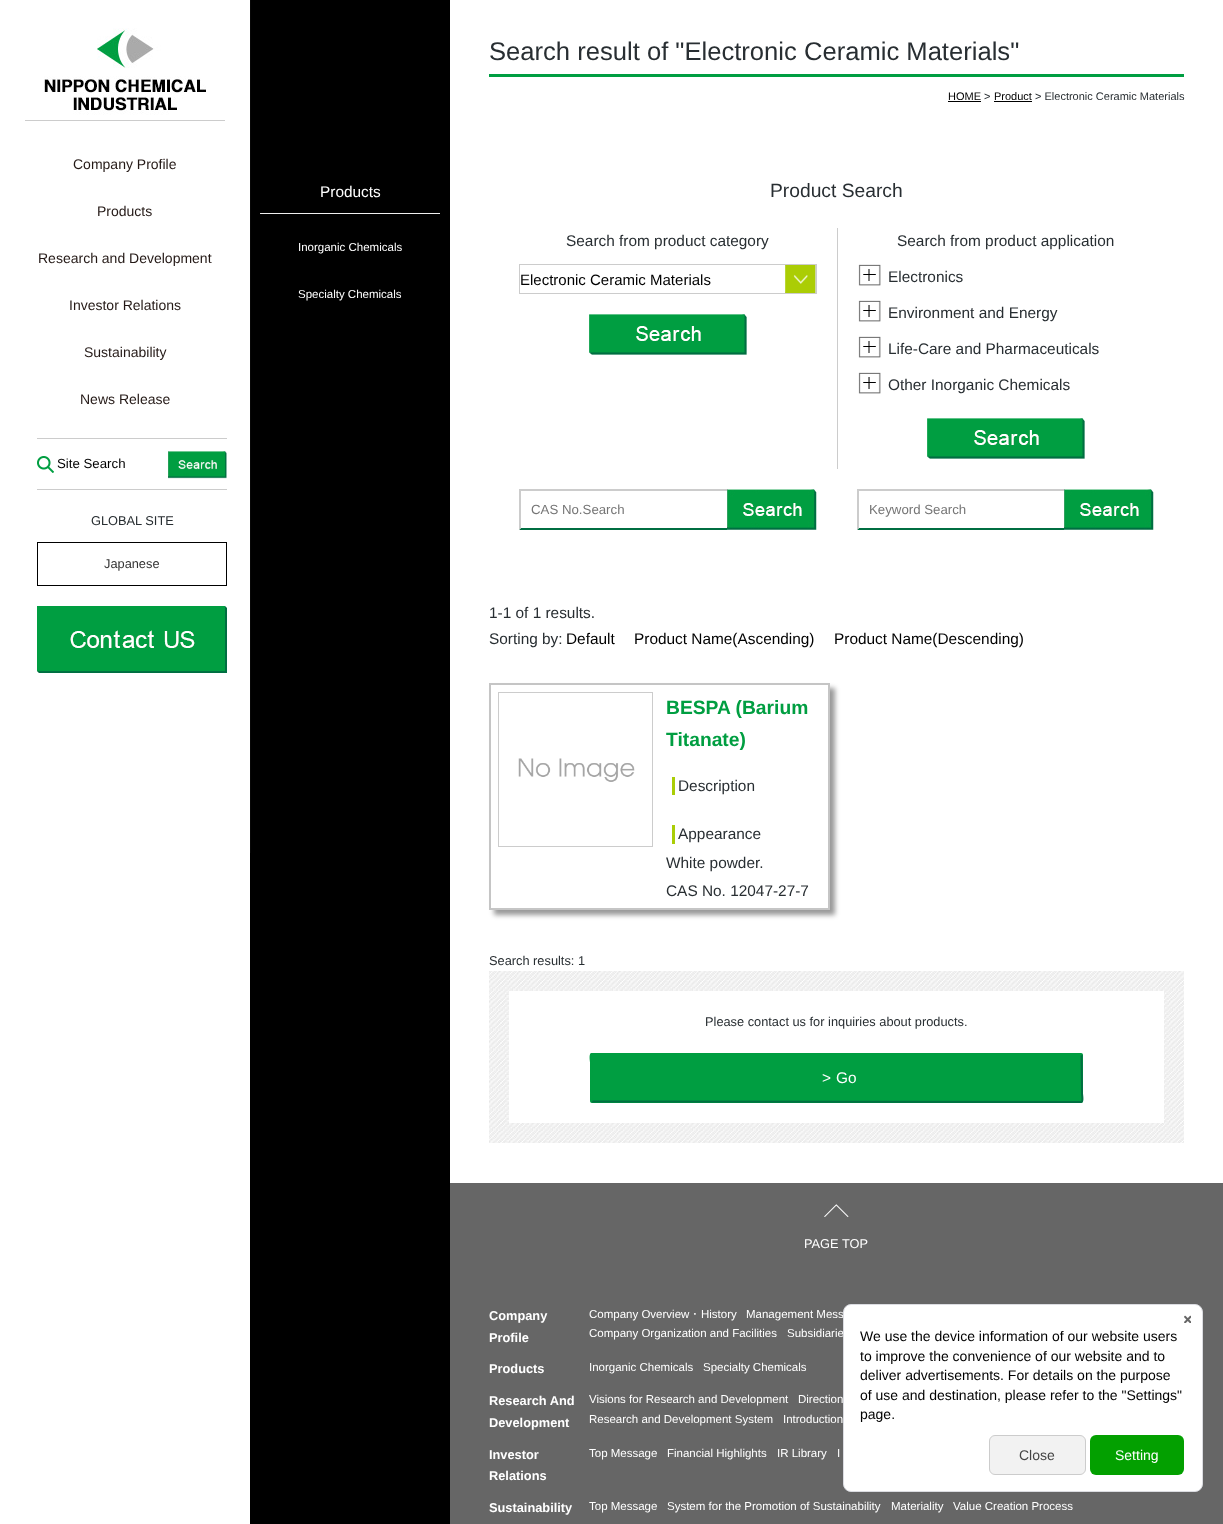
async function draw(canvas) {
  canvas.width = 1223
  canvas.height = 1524
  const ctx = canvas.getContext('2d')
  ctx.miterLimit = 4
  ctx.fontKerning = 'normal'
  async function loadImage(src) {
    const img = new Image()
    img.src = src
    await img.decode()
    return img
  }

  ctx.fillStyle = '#fff'
  ctx.fillRect(0, 0, 1223, 1524)
  ctx.fillStyle = '#000'
  ctx.fillRect(250, 0, 200, 1524)
  ctx.fillStyle = '#eee'
  ctx.fillRect(260, 213, 180, 1)
  ctx.drawImage(await loadImage('image0.png'), 250, 0, 11, 853)
  ctx.fillStyle = '#ccc'
  ctx.fillRect(25, 120, 200, 1)
  ctx.drawImage(await loadImage('image1.png'), 44, 28, 162, 87)
  ctx.font = '14px Liberation Sans'
  ctx.fillStyle = '#231815'
  ctx.fillText('Company Profile', 73, 169)
  ctx.fillText('Products', 97, 216)
  ctx.fillText('Research and Development', 38, 263)
  ctx.fillText('Investor Relations', 69, 310)
  ctx.fillText('Sustainability', 84, 357)
  ctx.fillText('News Release', 80, 404)
  ctx.fillStyle = '#ccc'
  ctx.fillRect(37, 438, 190, 1)
  ctx.fillRect(37, 489, 190, 1)
  ctx.drawImage(await loadImage('image2.png'), 37, 456, 17, 17)
  ctx.font = '13.25px Liberation Sans'
  ctx.fillStyle = '#000'
  ctx.fillText('Site Search', 57, 468)
  ctx.drawImage(await loadImage('image3.png'), 168, 451, 59, 28)
  ctx.font = '12.8px Liberation Sans'
  ctx.fillStyle = '#282e32'
  ctx.fillText('GLOBAL SITE', 91, 525)
  ctx.strokeStyle = '#000'
  ctx.strokeRect(37.5, 542.5, 189, 43)
  ctx.fillStyle = '#333'
  ctx.fillText('Japanese', 104, 568)
  ctx.drawImage(await loadImage('image4.png'), 37, 606, 190, 67)
  ctx.font = '15.4px Liberation Sans'
  ctx.fillStyle = '#fff'
  ctx.fillText('Products', 320, 197)
  ctx.font = '11.5px Liberation Sans'
  ctx.fillText('Inorganic Chemicals', 298, 251)
  ctx.fillText('Specialty Chemicals', 298, 298)
  ctx.fillStyle = '#009e41'
  ctx.fillRect(489, 74, 695, 3)
  ctx.font = '25.6px Liberation Sans'
  ctx.fillStyle = '#282e32'
  ctx.fillText('Search result of "Electronic Ceramic Materials"', 489, 60)
  ctx.font = '11px Liberation Sans'
  ctx.fillStyle = '#000'
  ctx.fillText('HOME', 948, 100)
  ctx.fillRect(948, 101, 33, 1)
  ctx.fillStyle = '#282e32'
  ctx.fillText('>', 984, 100)
  ctx.fillStyle = '#000'
  ctx.fillText('Product', 994, 100)
  ctx.fillRect(994, 101, 38, 1)
  ctx.fillStyle = '#282e32'
  ctx.fillText('> Electronic Ceramic Materials', 1035, 100)
  ctx.font = '19.25px Liberation Sans'
  ctx.fillText('Product Search', 770, 197)
  ctx.font = '15.4px Liberation Sans'
  ctx.fillText('Search from product category', 566, 246)
  ctx.drawImage(await loadImage('image5.png'), 785, 265, 31, 28)
  ctx.strokeStyle = '#ccc'
  ctx.strokeRect(519.5, 264.5, 297, 29)
  ctx.font = '15px Liberation Sans'
  ctx.fillStyle = '#000'
  ctx.fillText('Electronic Ceramic Materials', 520, 285)
  ctx.drawImage(await loadImage('image6.png'), 589, 314, 158, 41)
  ctx.fillStyle = '#ccc'
  ctx.fillRect(837, 228, 1, 241)
  ctx.font = '15.4px Liberation Sans'
  ctx.fillStyle = '#282e32'
  ctx.fillText('Search from product application', 897, 246)
  ctx.drawImage(await loadImage('image7.png'), 858, 264, 23, 22)
  ctx.fillText('Electronics', 888, 282)
  ctx.drawImage(await loadImage('image8.png'), 858, 300, 23, 22)
  ctx.fillText('Environment and Energy', 888, 318)
  ctx.drawImage(await loadImage('image7.png'), 858, 336, 23, 22)
  ctx.fillText('Life-Care and Pharmaceuticals', 888, 354)
  ctx.drawImage(await loadImage('image8.png'), 858, 372, 23, 22)
  ctx.fillText('Other Inorganic Chemicals', 888, 390)
  ctx.drawImage(await loadImage('image6.png'), 927, 418, 158, 41)
  ctx.fillStyle = '#ccc'
  ctx.fillRect(519, 489, 208, 2)
  ctx.fillStyle = '#006e41'
  ctx.beginPath()
  ctx.moveTo(817, 530)
  ctx.lineTo(519, 530)
  ctx.lineTo(521, 528)
  ctx.lineTo(817, 528)
  ctx.closePath()
  ctx.fill()
  ctx.fillStyle = '#ccc'
  ctx.beginPath()
  ctx.moveTo(519, 530)
  ctx.lineTo(519, 489)
  ctx.lineTo(521, 491)
  ctx.lineTo(521, 528)
  ctx.closePath()
  ctx.fill()
  ctx.font = '13.25px Liberation Sans'
  ctx.fillStyle = '#757575'
  ctx.fillText('CAS No.Search', 531, 514)
  ctx.drawImage(await loadImage('image9.png'), 727, 489, 90, 41)
  ctx.fillStyle = '#ccc'
  ctx.fillRect(857, 489, 207, 2)
  ctx.fillStyle = '#006e41'
  ctx.beginPath()
  ctx.moveTo(1154, 530)
  ctx.lineTo(857, 530)
  ctx.lineTo(859, 528)
  ctx.lineTo(1154, 528)
  ctx.closePath()
  ctx.fill()
  ctx.fillStyle = '#ccc'
  ctx.beginPath()
  ctx.moveTo(857, 530)
  ctx.lineTo(857, 489)
  ctx.lineTo(859, 491)
  ctx.lineTo(859, 528)
  ctx.closePath()
  ctx.fill()
  ctx.fillStyle = '#757575'
  ctx.fillText('Keyword Search', 869, 514)
  ctx.drawImage(await loadImage('image9.png'), 1064, 489, 90, 41)
  ctx.font = '15.4px Liberation Sans'
  ctx.fillStyle = '#282e32'
  ctx.fillText('1-1 of 1 results.', 489, 618)
  ctx.fillText('Sorting by:', 489, 644)
  ctx.fillStyle = '#000'
  ctx.fillText('Default', 566, 644)
  ctx.fillText('Product Name(Ascending)', 634, 644)
  ctx.fillText('Product Name(Descending)', 834, 644)
  ctx.save()
  ctx.beginPath()
  ctx.moveTo(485, 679)
  ctx.lineTo(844, 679)
  ctx.lineTo(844, 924)
  ctx.lineTo(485, 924)
  ctx.closePath()
  ctx.moveTo(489, 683)
  ctx.lineTo(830, 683)
  ctx.lineTo(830, 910)
  ctx.lineTo(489, 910)
  ctx.closePath()
  ctx.clip('evenodd')
  ctx.fillStyle = '#00000066'
  ctx.filter = 'blur(2.5px)'
  ctx.beginPath()
  ctx.rect(494, 688, 341, 227)
  ctx.fill()
  ctx.filter = 'none'
  ctx.restore()
  ctx.strokeStyle = '#c5c5c5'
  ctx.lineWidth = 2
  ctx.strokeRect(490, 684, 339, 225)
  ctx.strokeStyle = '#ccc'
  ctx.lineWidth = 1
  ctx.strokeRect(498.5, 692.5, 154, 154)
  ctx.drawImage(await loadImage('image10.png'), 518, 758, 117, 24)
  ctx.font = 'bold 19.25px Liberation Sans'
  ctx.fillStyle = '#009e41'
  ctx.fillText('BESPA (Barium', 666, 714)
  ctx.fillText('Titanate)', 666, 746)
  ctx.fillStyle = '#aacd06'
  ctx.fillRect(672, 777, 3, 18)
  ctx.font = '15.4px Liberation Sans'
  ctx.fillStyle = '#282e32'
  ctx.fillText('Description', 678, 791)
  ctx.fillStyle = '#aacd06'
  ctx.fillRect(672, 825, 3, 19)
  ctx.fillStyle = '#282e32'
  ctx.fillText('Appearance', 678, 839)
  ctx.fillText('White powder.', 666, 868)
  ctx.fillText('CAS No. 12047-27-7', 666, 896)
  ctx.font = '12.8px Liberation Sans'
  ctx.fillText('Search results: 1', 489, 965)
  ctx.drawImage(await loadImage('image11.png'), 489, 971, 695, 172)
  ctx.fillStyle = '#fff'
  ctx.fillRect(509, 991, 655, 132)
  ctx.fillStyle = '#282e32'
  ctx.fillText('Please contact us for inquiries about products.', 705, 1026)
  ctx.fillStyle = '#009e41'
  ctx.beginPath()
  ctx.roundRect(590, 1053, 493, 50, 2)
  ctx.fill()
  ctx.beginPath()
  ctx.moveTo(1081.5, 1054.5)
  ctx.lineTo(1082, 1093.5)
  ctx.bezierCurveTo(1082, 1094.5, 1083.5, 1102, 1081, 1102)
  ctx.lineTo(591.5, 1101.5)
  ctx.strokeStyle = '#006f41'
  ctx.lineWidth = 2
  ctx.stroke()
  ctx.beginPath()
  ctx.moveTo(591.5, 1101.5)
  ctx.lineTo(591, 1062.5)
  ctx.bezierCurveTo(591, 1061.5, 589.5, 1054, 592, 1054)
  ctx.lineTo(1081.5, 1054.5)
  ctx.strokeStyle = '#009e41'
  ctx.stroke()
  ctx.font = '15.4px Liberation Sans'
  ctx.fillStyle = '#fff'
  ctx.fillText('>', 822, 1083)
  ctx.fillText('Go', 836, 1083)
  ctx.fillStyle = '#666'
  ctx.fillRect(450, 1183, 773, 341)
  ctx.drawImage(await loadImage('image12.png'), 824, 1204, 25, 13)
  ctx.font = '12.8px Liberation Sans'
  ctx.fillStyle = '#fff'
  ctx.fillText('PAGE TOP', 804, 1248)
  ctx.font = 'bold 12.8px Liberation Sans'
  ctx.fillText('Company', 489, 1320)
  ctx.fillText('Profile', 489, 1342)
  ctx.font = '11.5px Liberation Sans'
  ctx.fillText('Company Overview', 589, 1318)
  ctx.font = '500 11.5px WenQuanYi Zen Hei'
  ctx.fillText('・', 689, 1318)
  ctx.font = '11.5px Liberation Sans'
  ctx.fillText('History', 701, 1318)
  ctx.fillText('Management Mess', 746, 1318)
  ctx.fillText('Company Organization and Facilities', 589, 1337)
  ctx.fillText('Subsidiarie', 787, 1337)
  ctx.font = 'bold 12.8px Liberation Sans'
  ctx.fillText('Products', 489, 1373)
  ctx.font = '11.5px Liberation Sans'
  ctx.fillText('Inorganic Chemicals', 589, 1371)
  ctx.fillText('Specialty Chemicals', 703, 1371)
  ctx.font = 'bold 12.8px Liberation Sans'
  ctx.fillText('Research And', 489, 1405)
  ctx.fillText('Development', 489, 1427)
  ctx.font = '11.5px Liberation Sans'
  ctx.fillText('Visions for Research and Development', 589, 1403)
  ctx.fillText('Direction', 798, 1403)
  ctx.fillText('Research and Development System', 589, 1423)
  ctx.fillText('Introduction', 783, 1423)
  ctx.font = 'bold 12.8px Liberation Sans'
  ctx.fillText('Investor', 489, 1459)
  ctx.fillText('Relations', 489, 1480)
  ctx.font = '11.5px Liberation Sans'
  ctx.fillText('Top Message', 589, 1457)
  ctx.fillText('Financial Highlights', 667, 1457)
  ctx.fillText('IR Library', 777, 1457)
  ctx.fillText('I', 837, 1457)
  ctx.font = 'bold 12.8px Liberation Sans'
  ctx.fillText('Sustainability', 489, 1512)
  ctx.font = '11.5px Liberation Sans'
  ctx.fillText('Top Message', 589, 1510)
  ctx.fillText('System for the Promotion of Sustainability', 667, 1510)
  ctx.fillText('Materiality', 891, 1510)
  ctx.fillText('Value Creation Process', 953, 1510)
  ctx.beginPath()
  ctx.roundRect(843.5, 1304.5, 359, 187, 7.5)
  ctx.fill()
  ctx.strokeStyle = '#dbdce1'
  ctx.lineWidth = 1
  ctx.stroke()
  ctx.drawImage(await loadImage('image13.png'), 1184, 1315, 7, 8)
  ctx.font = '14px Liberation Sans'
  ctx.fillStyle = '#000'
  ctx.fillText('We use the device information of our website users', 860, 1341)
  ctx.fillText('to improve the convenience of our website and to', 860, 1361)
  ctx.fillText('deliver advertisements. For details on the purpose', 860, 1380)
  ctx.fillText('of use and destination, please refer to the "Settings"', 860, 1400)
  ctx.fillText('page.', 860, 1419)
  ctx.fillStyle = '#f2f2f2'
  ctx.beginPath()
  ctx.roundRect(989.5, 1435.5, 96, 39, 5.5)
  ctx.fill()
  ctx.strokeStyle = '#ccc'
  ctx.stroke()
  ctx.fillStyle = '#444'
  ctx.fillText('Close', 1019, 1460)
  ctx.fillStyle = '#03a000'
  ctx.beginPath()
  ctx.roundRect(1090, 1435, 94, 40, 6)
  ctx.fill()
  ctx.fillStyle = '#fff'
  ctx.fillText('Setting', 1115, 1460)
}

draw(document.querySelector('canvas'))
